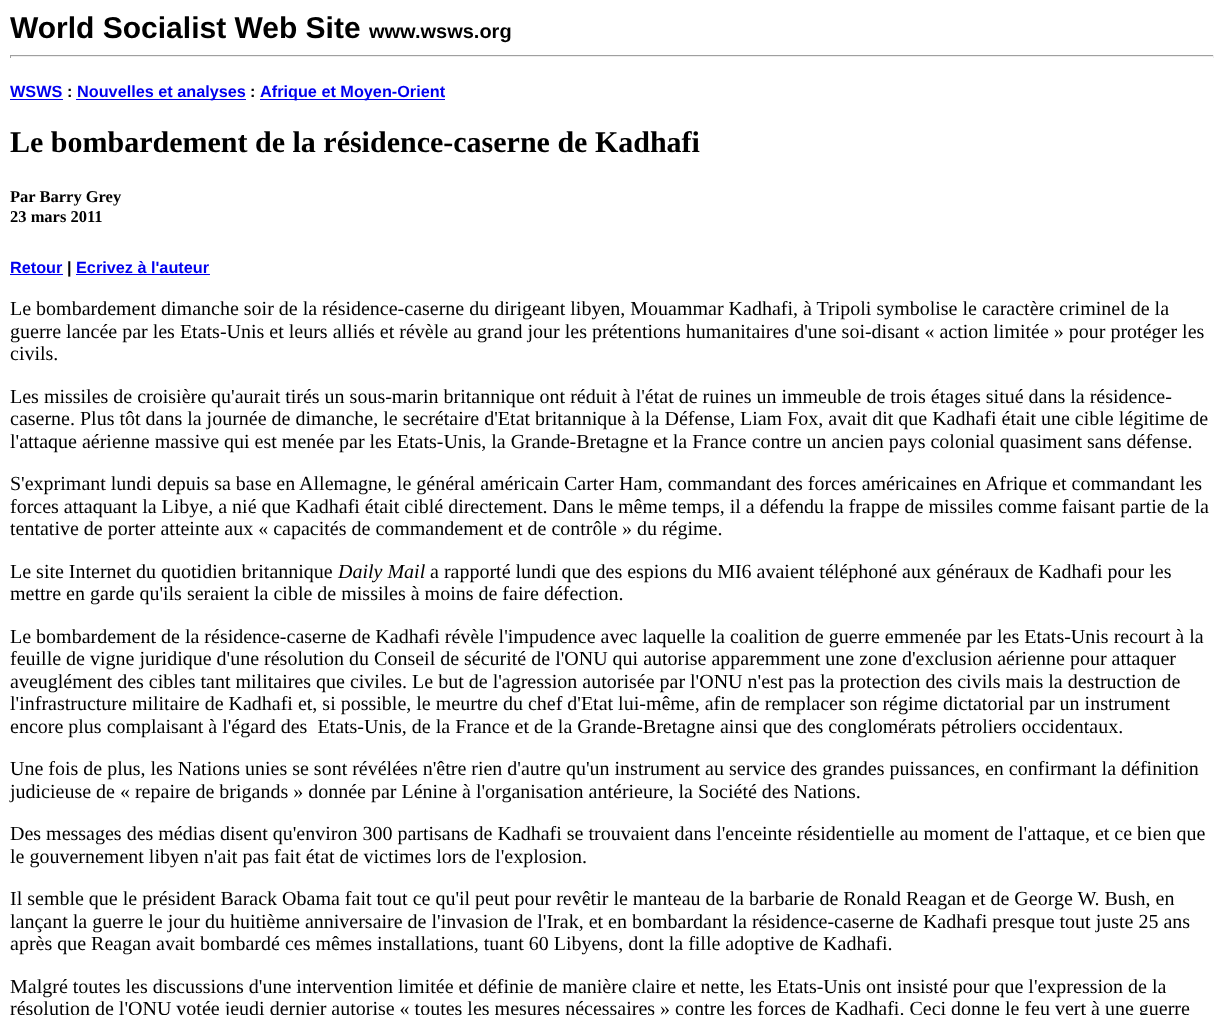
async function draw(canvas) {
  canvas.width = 1223
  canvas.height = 1015
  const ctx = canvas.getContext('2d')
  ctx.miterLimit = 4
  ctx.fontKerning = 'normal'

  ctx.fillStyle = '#fff'
  ctx.fillRect(0, 0, 1223, 1015)
  ctx.font = 'bold 30px Liberation Sans'
  ctx.fillStyle = '#000'
  ctx.fillText('World Socialist Web Site', 10, 38)
  ctx.font = 'bold 20px Liberation Sans'
  ctx.fillText('www.wsws.org', 369, 38)
  ctx.fillStyle = '#9f9f9f'
  ctx.fillRect(10, 55, 1204, 1)
  ctx.fillStyle = '#eee'
  ctx.fillRect(1213, 55, 1, 3)
  ctx.fillRect(10, 56, 1204, 1)
  ctx.fillStyle = '#9f9f9f'
  ctx.fillRect(10, 55, 1, 3)
  ctx.font = 'bold 16.25px Liberation Sans'
  ctx.fillStyle = '#00e'
  ctx.fillText('WSWS', 10, 97)
  ctx.fillRect(10, 99, 53, 1)
  ctx.fillStyle = '#000'
  ctx.fillText(':', 67, 97)
  ctx.fillStyle = '#00e'
  ctx.fillRect(76, 99, 170, 1)
  ctx.fillText('Nouvelles et analyses', 77, 97)
  ctx.fillStyle = '#000'
  ctx.fillText(':', 250, 97)
  ctx.fillStyle = '#00e'
  ctx.fillRect(260, 99, 185, 1)
  ctx.fillText('Afrique et Moyen-Orient', 260, 97)
  ctx.font = 'bold 30px Liberation Serif'
  ctx.fillStyle = '#000'
  ctx.fillText('Le bombardement de la résidence-caserne de Kadhafi', 10, 152)
  ctx.font = 'bold 16.5px Liberation Serif'
  ctx.fillText('Par Barry Grey', 10, 202)
  ctx.fillText('23 mars 2011', 10, 222)
  ctx.font = 'bold 16.25px Liberation Sans'
  ctx.fillStyle = '#00e'
  ctx.fillText('Retour', 10, 273)
  ctx.fillRect(10, 274, 53, 1)
  ctx.fillStyle = '#000'
  ctx.fillText('|', 67, 273)
  ctx.fillStyle = '#00e'
  ctx.fillText('Ecrivez à l\'auteur', 76, 273)
  ctx.fillRect(76, 274, 134, 1)
  ctx.font = '20px Liberation Serif'
  ctx.fillStyle = '#000'
  ctx.fillText('Le bombardement dimanche soir de la résidence-caserne du dirigeant libyen, Mouammar Kadhafi, à Tripoli symbolise le caractère criminel de la', 10, 315)
  ctx.fillText('guerre lancée par les Etats-Unis et leurs alliés et révèle au grand jour les prétentions humanitaires d\'une soi-disant « action limitée » pour protéger les', 10, 338)
  ctx.fillText('civils.', 10, 360)
  ctx.fillText('Les missiles de croisière qu\'aurait tirés un sous-marin britannique ont réduit à l\'état de ruines un immeuble de trois étages situé dans la résidence-', 10, 403)
  ctx.fillText('caserne. Plus tôt dans la journée de dimanche, le secrétaire d\'Etat britannique à la Défense, Liam Fox, avait dit que Kadhafi était une cible légitime de', 10, 425)
  ctx.fillText('l\'attaque aérienne massive qui est menée par les Etats-Unis, la Grande-Bretagne et la France contre un ancien pays colonial quasiment sans défense.', 10, 448)
  ctx.fillText('S\'exprimant lundi depuis sa base en Allemagne, le général américain Carter Ham, commandant des forces américaines en Afrique et commandant les', 10, 490)
  ctx.fillText('forces attaquant la Libye, a nié que Kadhafi était ciblé directement. Dans le même temps, il a défendu la frappe de missiles comme faisant partie de la', 10, 513)
  ctx.fillText('tentative de porter atteinte aux « capacités de commandement et de contrôle » du régime.', 10, 535)
  ctx.fillText('Le site Internet du quotidien britannique', 10, 578)
  ctx.font = 'italic 20px Liberation Serif'
  ctx.fillText('Daily Mail', 338, 578)
  ctx.font = '20px Liberation Serif'
  ctx.fillText('a rapporté lundi que des espions du MI6 avaient téléphoné aux généraux de Kadhafi pour les', 430, 578)
  ctx.fillText('mettre en garde qu\'ils seraient la cible de missiles à moins de faire défection.', 10, 600)
  ctx.fillText('Le bombardement de la résidence-caserne de Kadhafi révèle l\'impudence avec laquelle la coalition de guerre emmenée par les Etats-Unis recourt à la', 10, 643)
  ctx.fillText('feuille de vigne juridique d\'une résolution du Conseil de sécurité de l\'ONU qui autorise apparemment une zone d\'exclusion aérienne pour attaquer', 10, 665)
  ctx.fillText('aveuglément des cibles tant militaires que civiles. Le but de l\'agression autorisée par l\'ONU n\'est pas la protection des civils mais la destruction de', 10, 688)
  ctx.fillText('l\'infrastructure militaire de Kadhafi et, si possible, le meurtre du chef d\'Etat lui-même, afin de remplacer son régime dictatorial par un instrument', 10, 710)
  ctx.fillText('encore plus complaisant à l\'égard des  Etats-Unis, de la France et de la Grande-Bretagne ainsi que des conglomérats pétroliers occidentaux.', 10, 733)
  ctx.fillText('Une fois de plus, les Nations unies se sont révélées n\'être rien d\'autre qu\'un instrument au service des grandes puissances, en confirmant la définition', 10, 775)
  ctx.fillText('judicieuse de « repaire de brigands » donnée par Lénine à l\'organisation antérieure, la Société des Nations.', 10, 798)
  ctx.fillText('Des messages des médias disent qu\'environ 300 partisans de Kadhafi se trouvaient dans l\'enceinte résidentielle au moment de l\'attaque, et ce bien que', 10, 840)
  ctx.fillText('le gouvernement libyen n\'ait pas fait état de victimes lors de l\'explosion.', 10, 863)
  ctx.fillText('Il semble que le président Barack Obama fait tout ce qu\'il peut pour revêtir le manteau de la barbarie de Ronald Reagan et de George W. Bush, en', 10, 905)
  ctx.fillText('lançant la guerre le jour du huitième anniversaire de l\'invasion de l\'Irak, et en bombardant la résidence-caserne de Kadhafi presque tout juste 25 ans', 10, 928)
  ctx.fillText('après que Reagan avait bombardé ces mêmes installations, tuant 60 Libyens, dont la fille adoptive de Kadhafi.', 10, 950)
  ctx.fillText('Malgré toutes les discussions d\'une intervention limitée et définie de manière claire et nette, les Etats-Unis ont insisté pour que l\'expression de la', 10, 993)
  ctx.fillText('résolution de l\'ONU votée jeudi dernier autorise « toutes les mesures nécessaires » contre les forces de Kadhafi. Ceci donne le feu vert à une guerre', 10, 1015)
}

draw(document.querySelector('canvas'))
